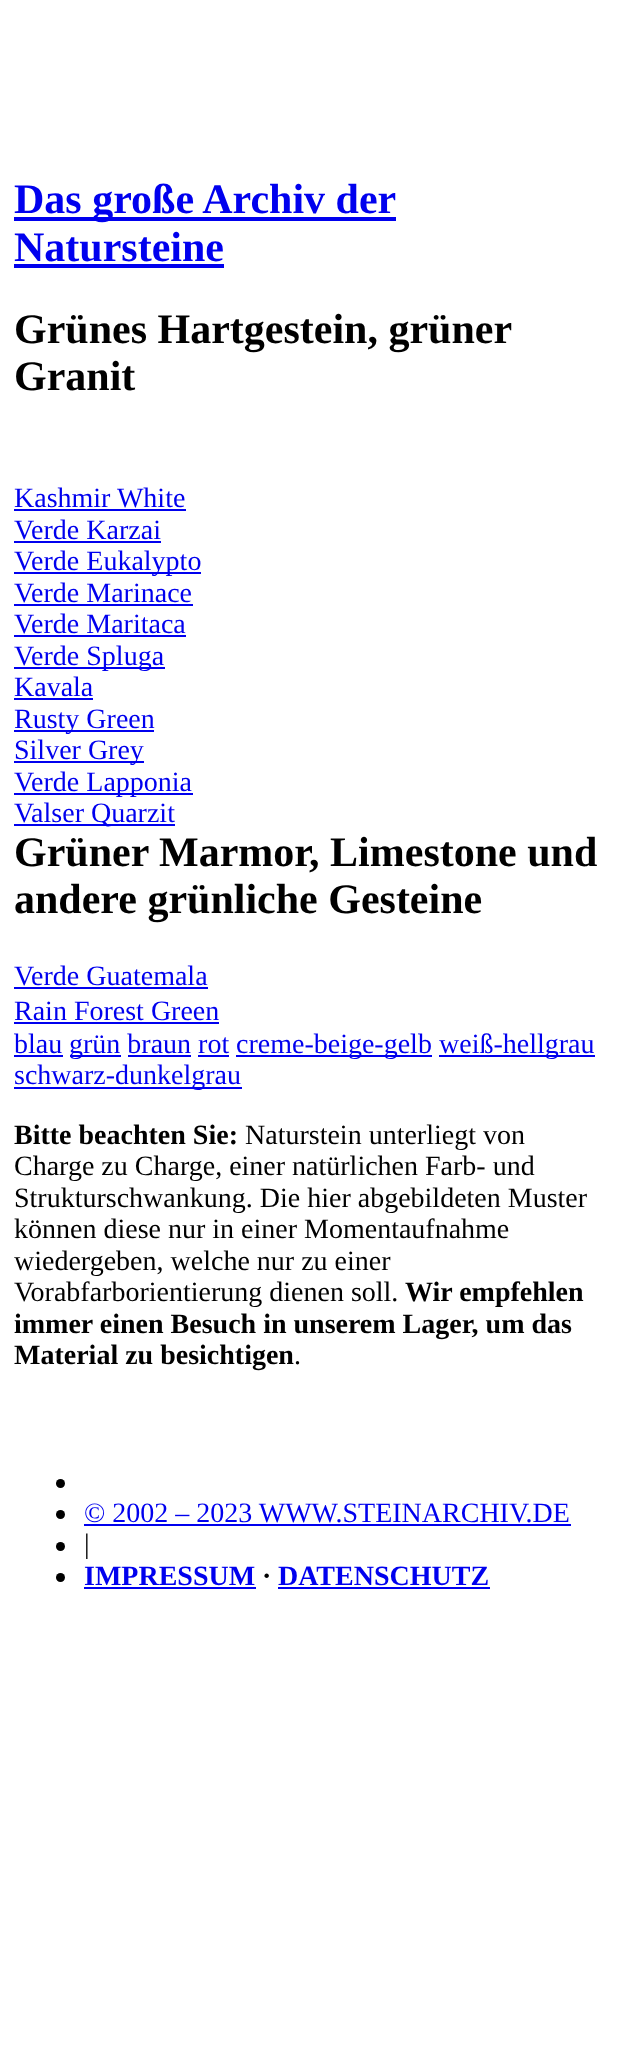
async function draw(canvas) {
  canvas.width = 618
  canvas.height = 2054
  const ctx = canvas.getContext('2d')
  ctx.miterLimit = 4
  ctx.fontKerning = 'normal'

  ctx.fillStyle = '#fff'
  ctx.fillRect(0, 0, 618, 2054)
  ctx.fillStyle = '#00e'
  ctx.fillRect(14, 217, 382, 4)
  ctx.font = 'bold 42px Liberation Serif'
  ctx.fillText('Das große Archiv der', 14, 213)
  ctx.fillText('Natursteine', 14, 261)
  ctx.fillRect(14, 264, 210, 4)
  ctx.fillStyle = '#000'
  ctx.fillText('Grünes Hartgestein, grüner', 14, 343)
  ctx.fillText('Granit', 14, 390)
  ctx.font = '28px Liberation Serif'
  ctx.fillStyle = '#00e'
  ctx.fillText('Kashmir White', 14, 507)
  ctx.fillRect(14, 509, 172, 2)
  ctx.fillText('Verde Karzai', 14, 539)
  ctx.fillRect(14, 541, 147, 2)
  ctx.fillRect(14, 572, 187, 2)
  ctx.fillText('Verde Eukalypto', 14, 570)
  ctx.fillText('Verde Marinace', 14, 602)
  ctx.fillRect(14, 604, 179, 2)
  ctx.fillText('Verde Maritaca', 14, 633)
  ctx.fillRect(14, 635, 172, 2)
  ctx.fillRect(14, 667, 151, 2)
  ctx.fillText('Verde Spluga', 14, 665)
  ctx.fillText('Kavala', 14, 696)
  ctx.fillRect(14, 698, 79, 2)
  ctx.fillRect(14, 730, 140, 2)
  ctx.fillText('Rusty Green', 14, 728)
  ctx.fillRect(14, 761, 130, 2)
  ctx.fillText('Silver Grey', 14, 759)
  ctx.fillRect(14, 793, 179, 2)
  ctx.fillText('Verde Lapponia', 14, 791)
  ctx.fillRect(14, 824, 161, 2)
  ctx.fillText('Valser Quarzit', 14, 822)
  ctx.font = 'bold 42px Liberation Serif'
  ctx.fillStyle = '#000'
  ctx.fillText('Grüner Marmor, Limestone und', 14, 866)
  ctx.fillText('andere grünliche Gesteine', 14, 913)
  ctx.font = '28px Liberation Serif'
  ctx.fillStyle = '#00e'
  ctx.fillText('Verde Guatemala', 14, 985)
  ctx.fillRect(14, 987, 194, 2)
  ctx.fillText('Rain Forest Green', 14, 1020)
  ctx.fillRect(14, 1022, 205, 2)
  ctx.fillText('blau', 14, 1053)
  ctx.fillRect(14, 1055, 49, 2)
  ctx.fillRect(70, 1055, 51, 2)
  ctx.fillText('grün braun rot', 69, 1053)
  ctx.fillRect(236, 1055, 196, 2)
  ctx.fillText('creme-beige-gelb', 236, 1053)
  ctx.fillRect(439, 1055, 156, 2)
  ctx.fillText('weiß-hellgrau', 439, 1053)
  ctx.fillRect(128, 1055, 63, 2)
  ctx.fillRect(198, 1055, 31, 2)
  ctx.fillRect(14, 1087, 228, 2)
  ctx.fillText('schwarz-dunkelgrau', 14, 1084)
  ctx.font = 'bold 28px Liberation Serif'
  ctx.fillStyle = '#000'
  ctx.fillText('Bitte beachten Sie:', 14, 1144)
  ctx.font = '28px Liberation Serif'
  ctx.fillText('Naturstein unterliegt von', 245, 1144)
  ctx.fillText('Charge zu Charge, einer natürlichen Farb- und', 14, 1175)
  ctx.fillText('Strukturschwankung. Die hier abgebildeten Muster', 14, 1207)
  ctx.fillText('können diese nur in einer Momentaufnahme', 14, 1238)
  ctx.fillText('wiedergeben, welche nur zu einer', 14, 1270)
  ctx.fillText('Vorabfarborientierung dienen soll.', 14, 1301)
  ctx.font = 'bold 28px Liberation Serif'
  ctx.fillText('Wir empfehlen', 405, 1301)
  ctx.fillText('immer einen Besuch in unserem Lager, um das', 14, 1333)
  ctx.fillText('Material zu besichtigen', 14, 1364)
  ctx.font = '28px Liberation Serif'
  ctx.fillText('.', 294, 1364)
  ctx.beginPath()
  ctx.arc(60.5, 1483.5, 4.5, 0, 2 * Math.PI)
  ctx.fill()
  ctx.beginPath()
  ctx.arc(60.5, 1514.5, 4.5, 0, 2 * Math.PI)
  ctx.fill()
  ctx.fillStyle = '#00e'
  ctx.fillText('© 2002 – 2023 WWW.STEINARCHIV.DE', 84, 1522)
  ctx.fillRect(84, 1524, 487, 2)
  ctx.fillStyle = '#000'
  ctx.beginPath()
  ctx.arc(60.5, 1546.5, 4.5, 0, 2 * Math.PI)
  ctx.fill()
  ctx.fillText('|', 84, 1553)
  ctx.beginPath()
  ctx.arc(60.5, 1577.5, 4.5, 0, 2 * Math.PI)
  ctx.fill()
  ctx.font = 'bold 28px Liberation Serif'
  ctx.fillStyle = '#00e'
  ctx.fillText('IMPRESSUM', 84, 1585)
  ctx.fillRect(84, 1587, 172, 2)
  ctx.fillStyle = '#000'
  ctx.fillText('·', 262, 1585)
  ctx.fillStyle = '#00e'
  ctx.fillText('DATENSCHUTZ', 278, 1585)
  ctx.fillRect(278, 1587, 212, 2)
}

draw(document.querySelector('canvas'))
